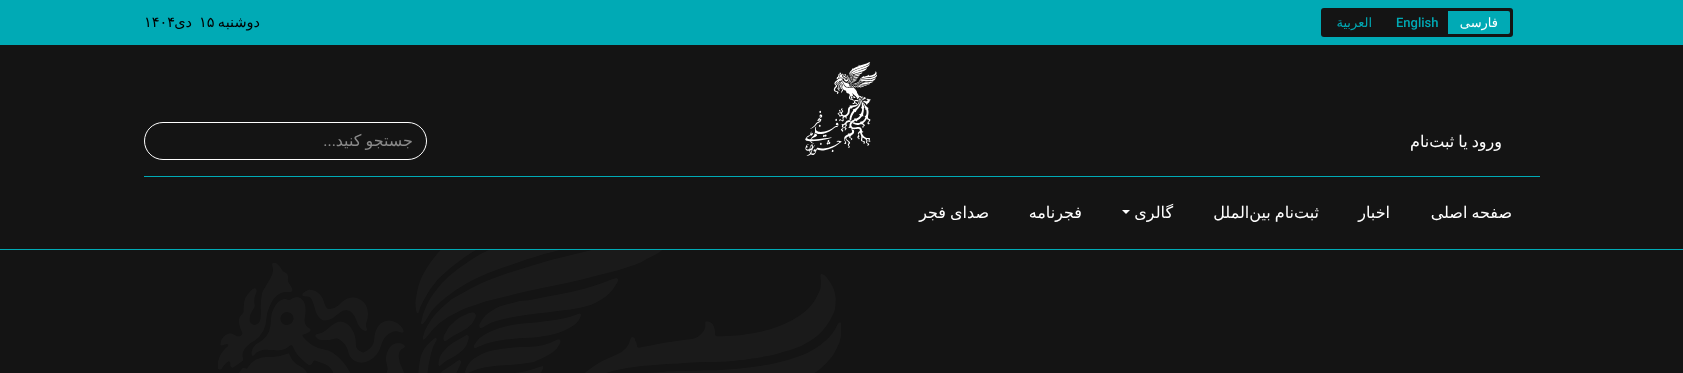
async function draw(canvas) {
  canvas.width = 1683
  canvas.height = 373
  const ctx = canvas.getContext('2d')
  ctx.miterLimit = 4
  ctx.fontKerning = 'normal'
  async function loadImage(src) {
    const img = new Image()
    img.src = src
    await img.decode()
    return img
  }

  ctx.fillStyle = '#00aab5'
  ctx.fillRect(0, 0, 1683, 373)
  ctx.fillStyle = '#141414'
  ctx.beginPath()
  ctx.roundRect(1321, 8, 192, 29, 3)
  ctx.fill()
  ctx.fillStyle = '#00aab5'
  ctx.beginPath()
  ctx.roundRect(1448, 11, 62, 23, [0, 2, 2, 0])
  ctx.fill()
  ctx.font = '500 13px Roboto'
  ctx.fillText('English', 1396, 27)
  ctx.direction = 'rtl'
  ctx.font = '13px DejaVu Sans'
  ctx.fillText('العربية', 1372, 27)
  ctx.fillStyle = '#fff'
  ctx.fillText('فارسی', 1498, 27)
  ctx.font = '14.5px DejaVu Sans'
  ctx.fillStyle = '#000'
  ctx.fillText('دوشنبه', 260, 27)
  ctx.direction = 'ltr'
  ctx.fillText('۱۵', 199, 27)
  ctx.direction = 'rtl'
  ctx.fillText('دی', 192, 27)
  ctx.direction = 'ltr'
  ctx.fillText('۱۴۰۴', 144, 27)
  ctx.fillStyle = '#141414'
  ctx.fillRect(0, 45, 1683, 204)
  ctx.wordSpacing = '-1px'
  ctx.direction = 'rtl'
  ctx.font = '16px DejaVu Sans'
  ctx.fillStyle = '#fff'
  ctx.fillText('ورود یا ثبت‌نام', 1502, 147)
  ctx.drawImage(await loadImage('image0.png'), 805, 62, 72, 94)
  ctx.beginPath()
  ctx.roundRect(144.5, 122.5, 282, 37, 18.5)
  ctx.strokeStyle = '#fff'
  ctx.stroke()
  ctx.fillStyle = '#8a8a8a'
  ctx.fillText('جستجو کنید', 413, 146)
  ctx.wordSpacing = '0px'
  ctx.font = '16px Roboto'
  ctx.fillText('...', 336, 146)
  ctx.fillStyle = '#00aab5'
  ctx.fillRect(144, 176, 1396, 1)
  ctx.wordSpacing = '-1px'
  ctx.font = '16px DejaVu Sans'
  ctx.fillStyle = '#fff'
  ctx.fillText('صفحه اصلی', 1512, 218)
  ctx.wordSpacing = '0px'
  ctx.fillText('اخبار', 1390, 218)
  ctx.wordSpacing = '-1px'
  ctx.fillText('ثبت‌نام بین‌الملل', 1319, 218)
  ctx.wordSpacing = '0px'
  ctx.fillText('گالری', 1173, 218)
  ctx.beginPath()
  ctx.moveTo(1122, 210)
  ctx.lineTo(1130, 210)
  ctx.lineTo(1126, 214)
  ctx.closePath()
  ctx.fill()
  ctx.fillText('فجرنامه', 1082, 218)
  ctx.wordSpacing = '-1px'
  ctx.fillText('صدای فجر', 989, 218)
  ctx.fillStyle = '#141414'
  ctx.fillRect(0, 250, 1683, 123)
  ctx.drawImage(await loadImage('image1.png'), 218, 250, 623, 123)
}

draw(document.querySelector('canvas'))
